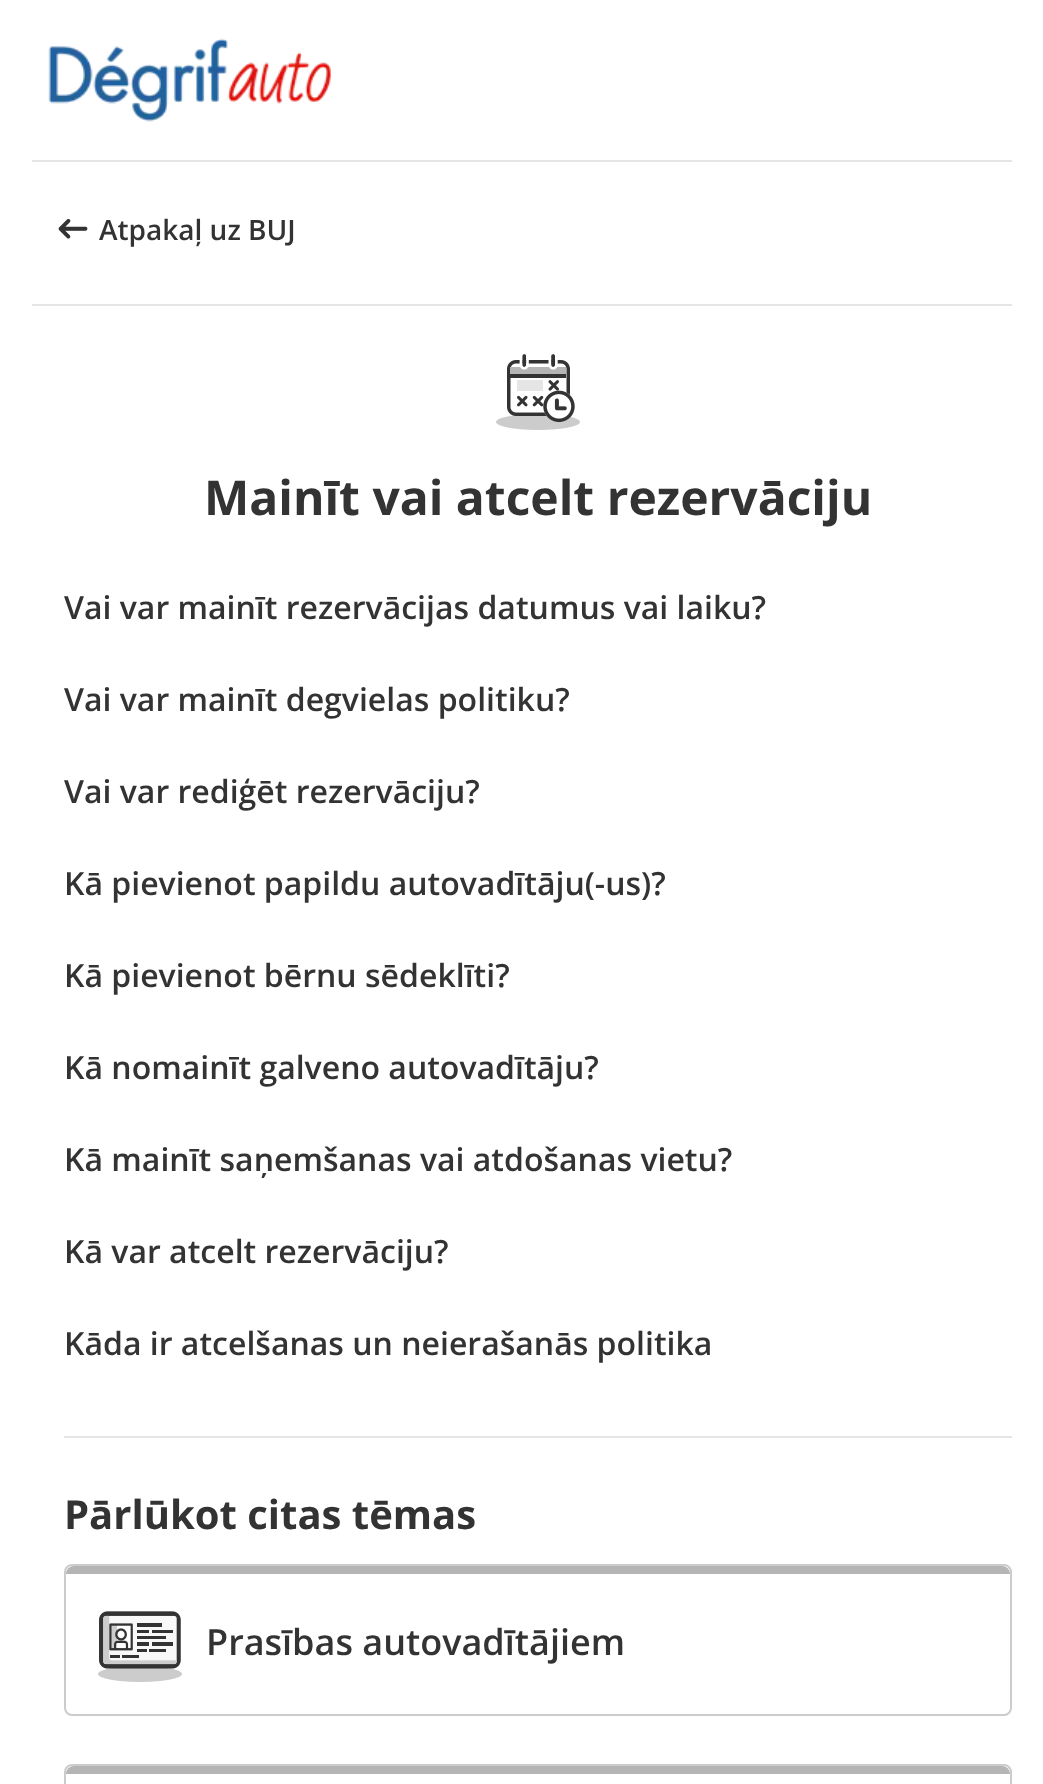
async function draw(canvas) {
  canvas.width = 1043
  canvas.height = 1784
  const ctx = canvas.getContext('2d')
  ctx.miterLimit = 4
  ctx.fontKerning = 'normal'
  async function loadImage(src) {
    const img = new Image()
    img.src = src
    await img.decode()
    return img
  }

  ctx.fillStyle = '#fff'
  ctx.fillRect(0, 0, 1043, 1784)
  ctx.drawImage(await loadImage('image0.png'), 48, 38, 283, 84)
  ctx.fillStyle = '#e5e5e5'
  ctx.fillRect(32, 160, 980, 2)
  ctx.drawImage(await loadImage('image1.png'), 58, 219, 30, 20)
  ctx.font = '600 28px Open Sans'
  ctx.fillStyle = '#333'
  ctx.fillText('Atpakaļ uz BUJ', 99, 240)
  ctx.fillStyle = '#e5e5e5'
  ctx.fillRect(32, 304, 980, 2)
  ctx.drawImage(await loadImage('image2.png'), 496, 354, 84, 76)
  ctx.font = 'bold 48px Open Sans'
  ctx.fillStyle = '#333'
  ctx.fillText('Mainīt vai atcelt rezervāciju', 204, 515)
  ctx.font = '600 32px Open Sans'
  ctx.fillText('Vai var mainīt rezervācijas datumus vai laiku?', 64, 619)
  ctx.fillText('Vai var mainīt degvielas politiku?', 64, 711)
  ctx.fillText('Vai var rediģēt rezervāciju?', 64, 803)
  ctx.fillText('Kā pievienot papildu autovadītāju(-us)?', 64, 895)
  ctx.fillText('Kā pievienot bērnu sēdeklīti?', 64, 987)
  ctx.fillText('Kā nomainīt galveno autovadītāju?', 64, 1079)
  ctx.fillText('Kā mainīt saņemšanas vai atdošanas vietu?', 64, 1171)
  ctx.fillText('Kā var atcelt rezervāciju?', 64, 1263)
  ctx.fillText('Kāda ir atcelšanas un neierašanās politika', 64, 1355)
  ctx.fillStyle = '#e5e5e5'
  ctx.fillRect(64, 1436, 948, 2)
  ctx.font = 'bold 40px Open Sans'
  ctx.fillStyle = '#333'
  ctx.fillText('Pārlūkot citas tēmas', 64, 1529)
  ctx.beginPath()
  ctx.roundRect(65, 1565, 946, 150, 7)
  ctx.strokeStyle = '#ccc'
  ctx.lineWidth = 2
  ctx.stroke()
  ctx.fillStyle = '#b5b5b5'
  ctx.beginPath()
  ctx.roundRect(66, 1566, 944, 8, [8, 8, 0, 0])
  ctx.fill()
  ctx.drawImage(await loadImage('image3.png'), 98, 1611, 84, 71)
  ctx.font = '600 36px Open Sans'
  ctx.fillStyle = '#333'
  ctx.fillText('Prasības autovadītājiem', 206, 1655)
  ctx.beginPath()
  ctx.roundRect(65, 1765, 946, 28, 7)
  ctx.stroke()
  ctx.fillStyle = '#b5b5b5'
  ctx.beginPath()
  ctx.roundRect(66, 1766, 944, 8, [8, 8, 0, 0])
  ctx.fill()
}

draw(document.querySelector('canvas'))
